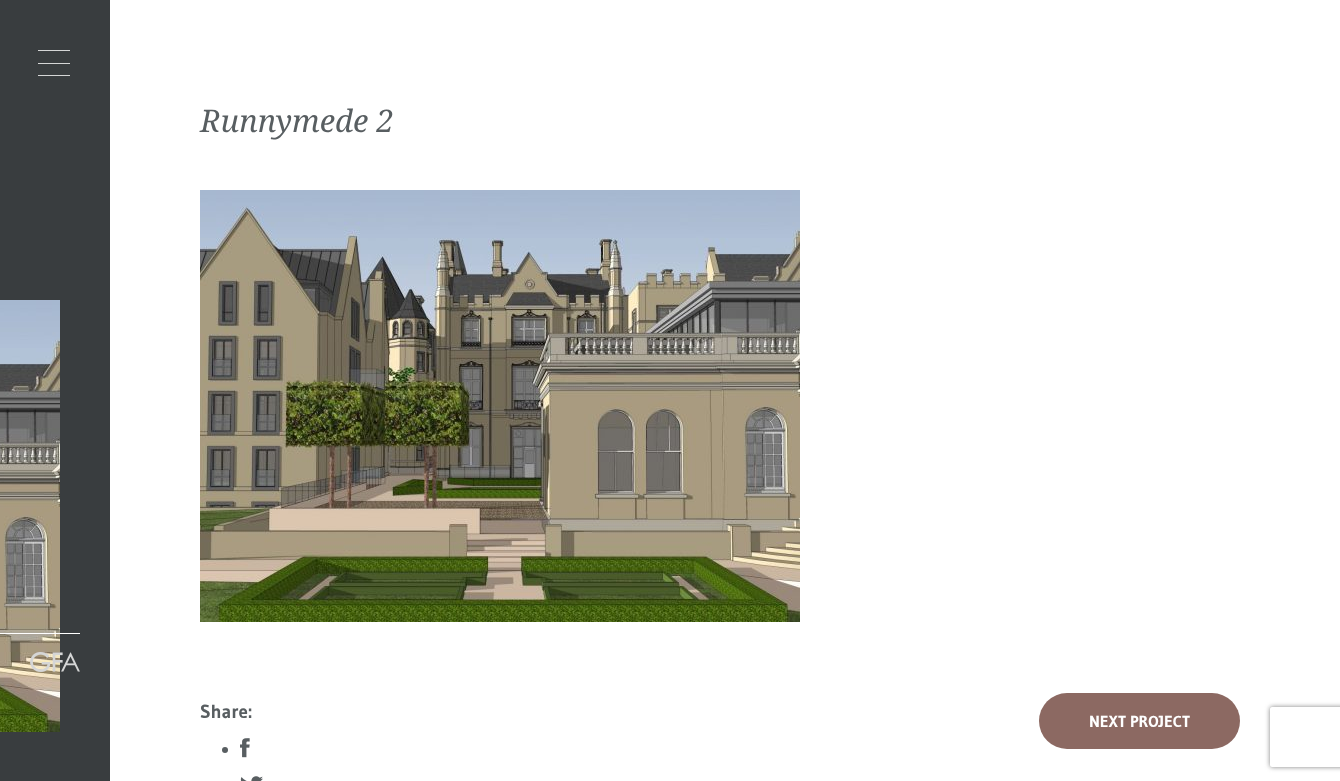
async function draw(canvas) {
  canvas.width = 1340
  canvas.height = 781
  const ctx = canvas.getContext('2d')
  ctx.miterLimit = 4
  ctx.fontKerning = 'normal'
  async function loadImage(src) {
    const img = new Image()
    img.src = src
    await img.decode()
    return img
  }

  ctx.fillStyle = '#fff'
  ctx.fillRect(0, 0, 1340, 781)
  ctx.fillStyle = '#393d3f'
  ctx.fillRect(0, 0, 110, 781)
  ctx.fillStyle = '#d5d6d6'
  ctx.fillRect(38, 50, 32, 1)
  ctx.fillRect(38, 63, 32, 1)
  ctx.fillRect(38, 75, 32, 1)
  ctx.drawImage(await loadImage('image0.png'), 0, 300, 60, 432)
  ctx.fillStyle = '#fff'
  ctx.fillRect(0, 633, 80, 1)
  ctx.drawImage(await loadImage('image1.png'), 30, 652, 50, 20)
  ctx.font = 'italic 31px Noto Serif'
  ctx.fillStyle = '#585e61'
  ctx.fillText('Runnymede 2', 200, 132)
  ctx.drawImage(await loadImage('image2.png'), 200, 190, 600, 432)
  ctx.font = 'bold 19px Gudea'
  ctx.fillText('Share:', 200, 718)
  ctx.beginPath()
  ctx.arc(225, 750, 3, 0, 2 * Math.PI)
  ctx.fill()
  ctx.drawImage(await loadImage('image3.png'), 240, 738, 10, 20)
  ctx.drawImage(await loadImage('image4.png'), 240, 776, 23, 5)
  ctx.fillStyle = '#8c6962'
  ctx.beginPath()
  ctx.roundRect(1039, 693, 201, 56, 28)
  ctx.fill()
  ctx.font = 'bold 16px Gudea'
  ctx.fillStyle = '#fff'
  ctx.fillText('NEXT PROJECT', 1089, 727)
  ctx.save()
  ctx.beginPath()
  ctx.moveTo(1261, 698)
  ctx.lineTo(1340, 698)
  ctx.lineTo(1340, 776)
  ctx.lineTo(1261, 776)
  ctx.closePath()
  ctx.moveTo(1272, 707)
  ctx.lineTo(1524, 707)
  ctx.bezierCurveTo(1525, 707, 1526, 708, 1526, 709)
  ctx.lineTo(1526, 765)
  ctx.bezierCurveTo(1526, 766, 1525, 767, 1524, 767)
  ctx.lineTo(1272, 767)
  ctx.bezierCurveTo(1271, 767, 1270, 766, 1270, 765)
  ctx.lineTo(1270, 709)
  ctx.bezierCurveTo(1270, 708, 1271, 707, 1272, 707)
  ctx.closePath()
  ctx.clip('evenodd')
  ctx.fillStyle = '#808080'
  ctx.filter = 'blur(2.5px)'
  ctx.beginPath()
  ctx.roundRect(1270, 707, 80, 60, 2)
  ctx.fill()
  ctx.filter = 'none'
  ctx.restore()
}

draw(document.querySelector('canvas'))
